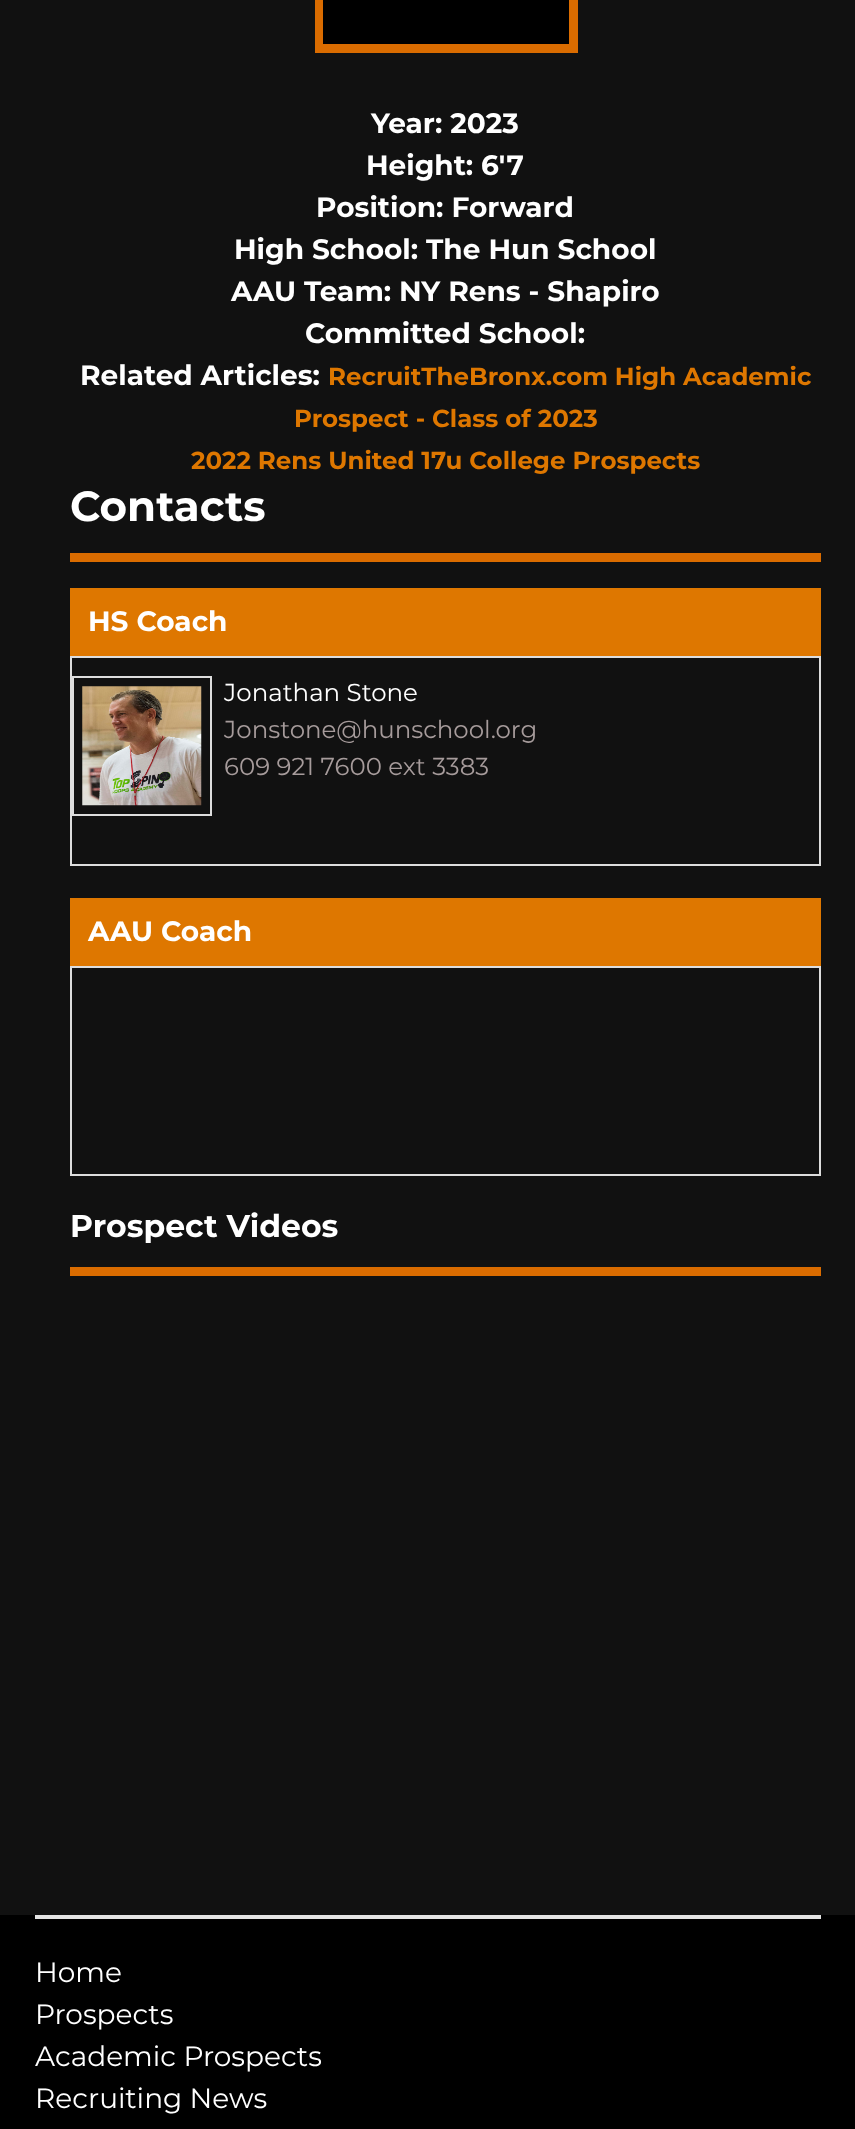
async function draw(canvas) {
  canvas.width = 855
  canvas.height = 2129
  const ctx = canvas.getContext('2d')
  ctx.miterLimit = 4
  ctx.fontKerning = 'normal'
  async function loadImage(src) {
    const img = new Image()
    img.src = src
    await img.decode()
    return img
  }

  ctx.fillStyle = '#111'
  ctx.fillRect(0, 0, 855, 2129)
  ctx.strokeStyle = '#da6c00'
  ctx.lineWidth = 9
  ctx.strokeRect(319.5, -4.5, 254, 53)
  ctx.fillStyle = '#000'
  ctx.fillRect(323, 0, 246, 44)
  ctx.font = 'bold 28px Montserrat'
  ctx.fillStyle = '#fff'
  ctx.fillText('Year: 2023', 371, 133)
  ctx.fillText('Height: 6\'7', 366, 175)
  ctx.fillText('Position: Forward', 316, 217)
  ctx.fillText('High School: The Hun School', 234, 259)
  ctx.fillText('AAU Team: NY Rens - Shapiro', 231, 301)
  ctx.fillText('Committed School:', 305, 343)
  ctx.fillText('Related Articles:', 80, 385)
  ctx.font = 'bold 24.5px Montserrat'
  ctx.fillStyle = '#de7700'
  ctx.fillText('RecruitTheBronx.com High Academic', 328, 385)
  ctx.fillText('Prospect - Class of 2023', 294, 427)
  ctx.fillText('2022 Rens United 17u College Prospects', 191, 469)
  ctx.fillStyle = '#da6c00'
  ctx.fillRect(70, 553, 751, 9)
  ctx.font = 'bold 42px Montserrat'
  ctx.fillStyle = '#fff'
  ctx.fillText('Contacts', 70, 521)
  ctx.fillStyle = '#de7700'
  ctx.fillRect(70, 588, 751, 68)
  ctx.font = 'bold 28px Montserrat'
  ctx.fillStyle = '#fff'
  ctx.fillText('HS Coach', 88, 631)
  ctx.strokeStyle = '#ddd'
  ctx.lineWidth = 2
  ctx.strokeRect(71, 657, 749, 208)
  ctx.strokeRect(73, 677, 138, 138)
  ctx.drawImage(await loadImage('image0.png'), 82, 686, 120, 120)
  ctx.font = '24.5px Montserrat'
  ctx.fillText('Jonathan Stone', 224, 701)
  ctx.fillStyle = '#a69b9b'
  ctx.fillText('Jonstone@hunschool.org', 224, 738)
  ctx.fillText('609 921 7600 ext 3383', 224, 775)
  ctx.fillStyle = '#de7700'
  ctx.fillRect(70, 898, 751, 68)
  ctx.font = 'bold 28px Montserrat'
  ctx.fillStyle = '#fff'
  ctx.fillText('AAU Coach', 88, 941)
  ctx.strokeRect(71, 967, 749, 208)
  ctx.fillStyle = '#da6c00'
  ctx.fillRect(70, 1267, 751, 9)
  ctx.font = 'bold 31.5px Montserrat'
  ctx.fillStyle = '#fff'
  ctx.fillText('Prospect Videos', 70, 1237)
  ctx.fillStyle = '#000'
  ctx.fillRect(0, 1915, 855, 214)
  ctx.fillStyle = '#e4e4e4'
  ctx.fillRect(35, 1915, 786, 4)
  ctx.font = '28px Montserrat'
  ctx.fillStyle = '#fff'
  ctx.fillText('Home', 35, 1982)
  ctx.fillText('Prospects', 35, 2024)
  ctx.fillText('Academic Prospects', 35, 2066)
  ctx.fillText('Recruiting News', 35, 2108)
}

draw(document.querySelector('canvas'))
